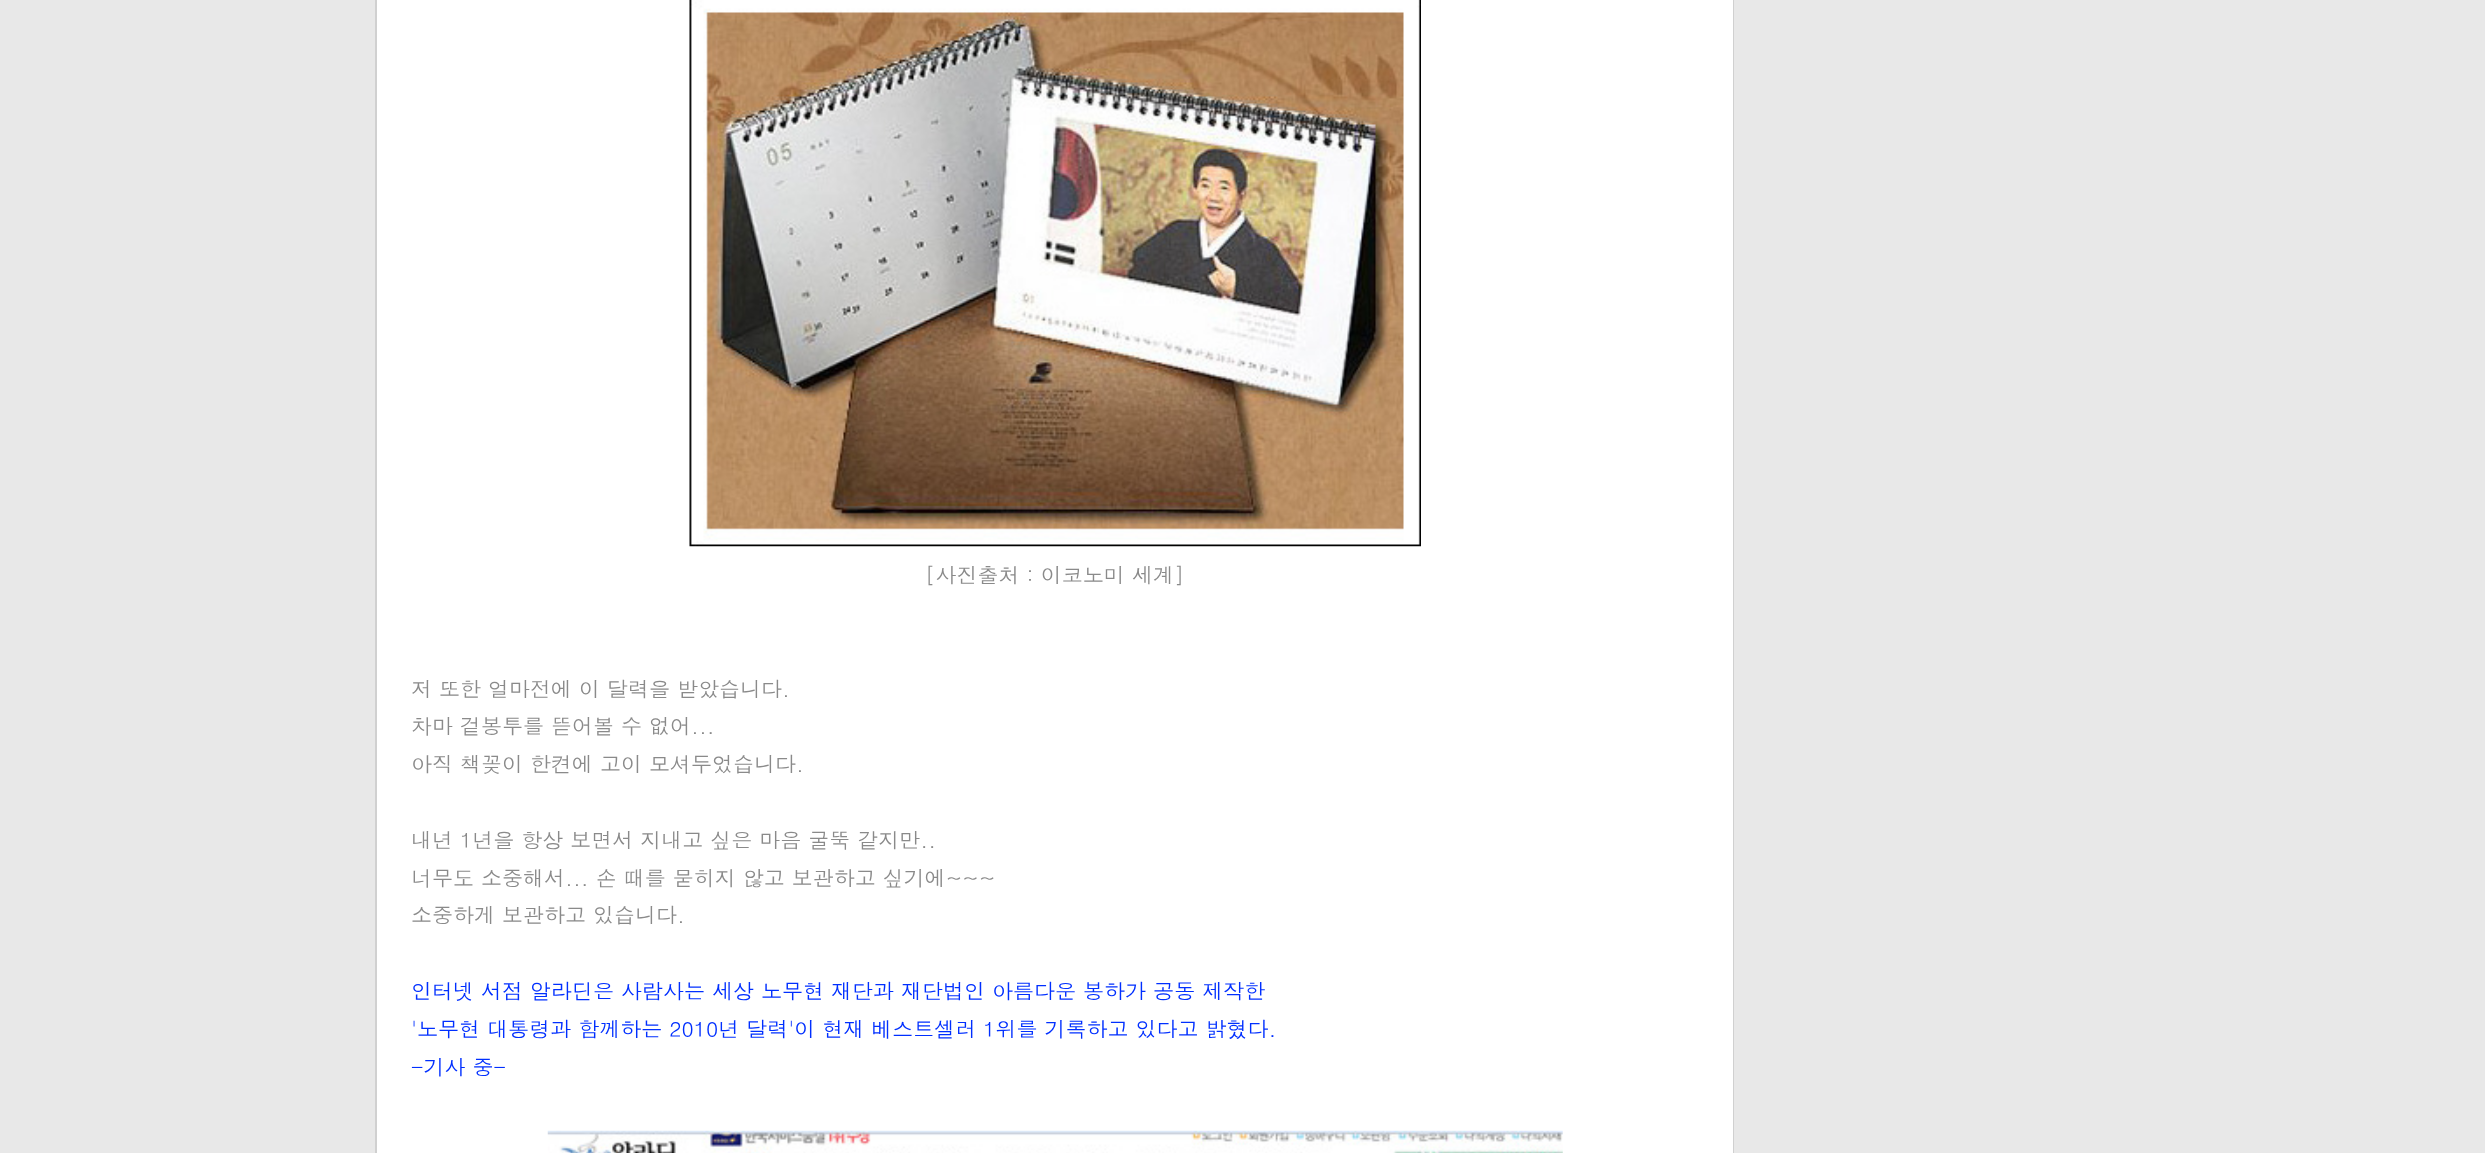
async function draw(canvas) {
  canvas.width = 2485
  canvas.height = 1153
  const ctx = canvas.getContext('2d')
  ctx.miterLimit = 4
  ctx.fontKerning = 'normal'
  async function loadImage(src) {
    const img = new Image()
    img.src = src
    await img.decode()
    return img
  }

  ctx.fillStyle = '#e8e8e8'
  ctx.fillRect(0, 0, 2485, 1153)
  ctx.fillStyle = '#fff'
  ctx.fillRect(377, 0, 1356, 1153)
  ctx.fillStyle = '#d0d0d0'
  ctx.fillRect(1733, 0, 1, 1153)
  ctx.fillRect(375, 0, 2, 1153)
  ctx.drawImage(await loadImage('image0.png'), 689, 0, 732, 547)
  ctx.font = '21px Dotum'
  ctx.fillStyle = '#8a8a8a'
  ctx.fillText('[사진출처 : 이코노미 세계]', 925, 583)
  ctx.fillText('저 또한 얼마전에 이 달력을 받았습니다.', 411, 697)
  ctx.fillText('차마 겉봉투를 뜯어볼 수 없어...', 411, 734)
  ctx.fillText('아직 책꽂이 한켠에 고이 모셔두었습니다.', 411, 772)
  ctx.fillText('내년 1년을 항상 보면서 지내고 싶은 마음 굴뚝 같지만..', 411, 848)
  ctx.fillText('너무도 소중해서... 손 때를 묻히지 않고 보관하고 싶기에~~~', 411, 886)
  ctx.fillText('소중하게 보관하고 있습니다.', 411, 923)
  ctx.fillStyle = '#002fff'
  ctx.fillText('인터넷 서점 알라딘은 사람사는 세상 노무현 재단과 재단법인 아름다운 봉하가 공동 제작한', 411, 999)
  ctx.fillText('\'노무현 대통령과 함께하는 2010년 달력\'이 현재 베스트셀러 1위를 기록하고 있다고 밝혔다.', 411, 1037)
  ctx.fillText('-기사 중-', 411, 1075)
  ctx.drawImage(await loadImage('image1.png'), 547, 1130, 1016, 23)
}

draw(document.querySelector('canvas'))
